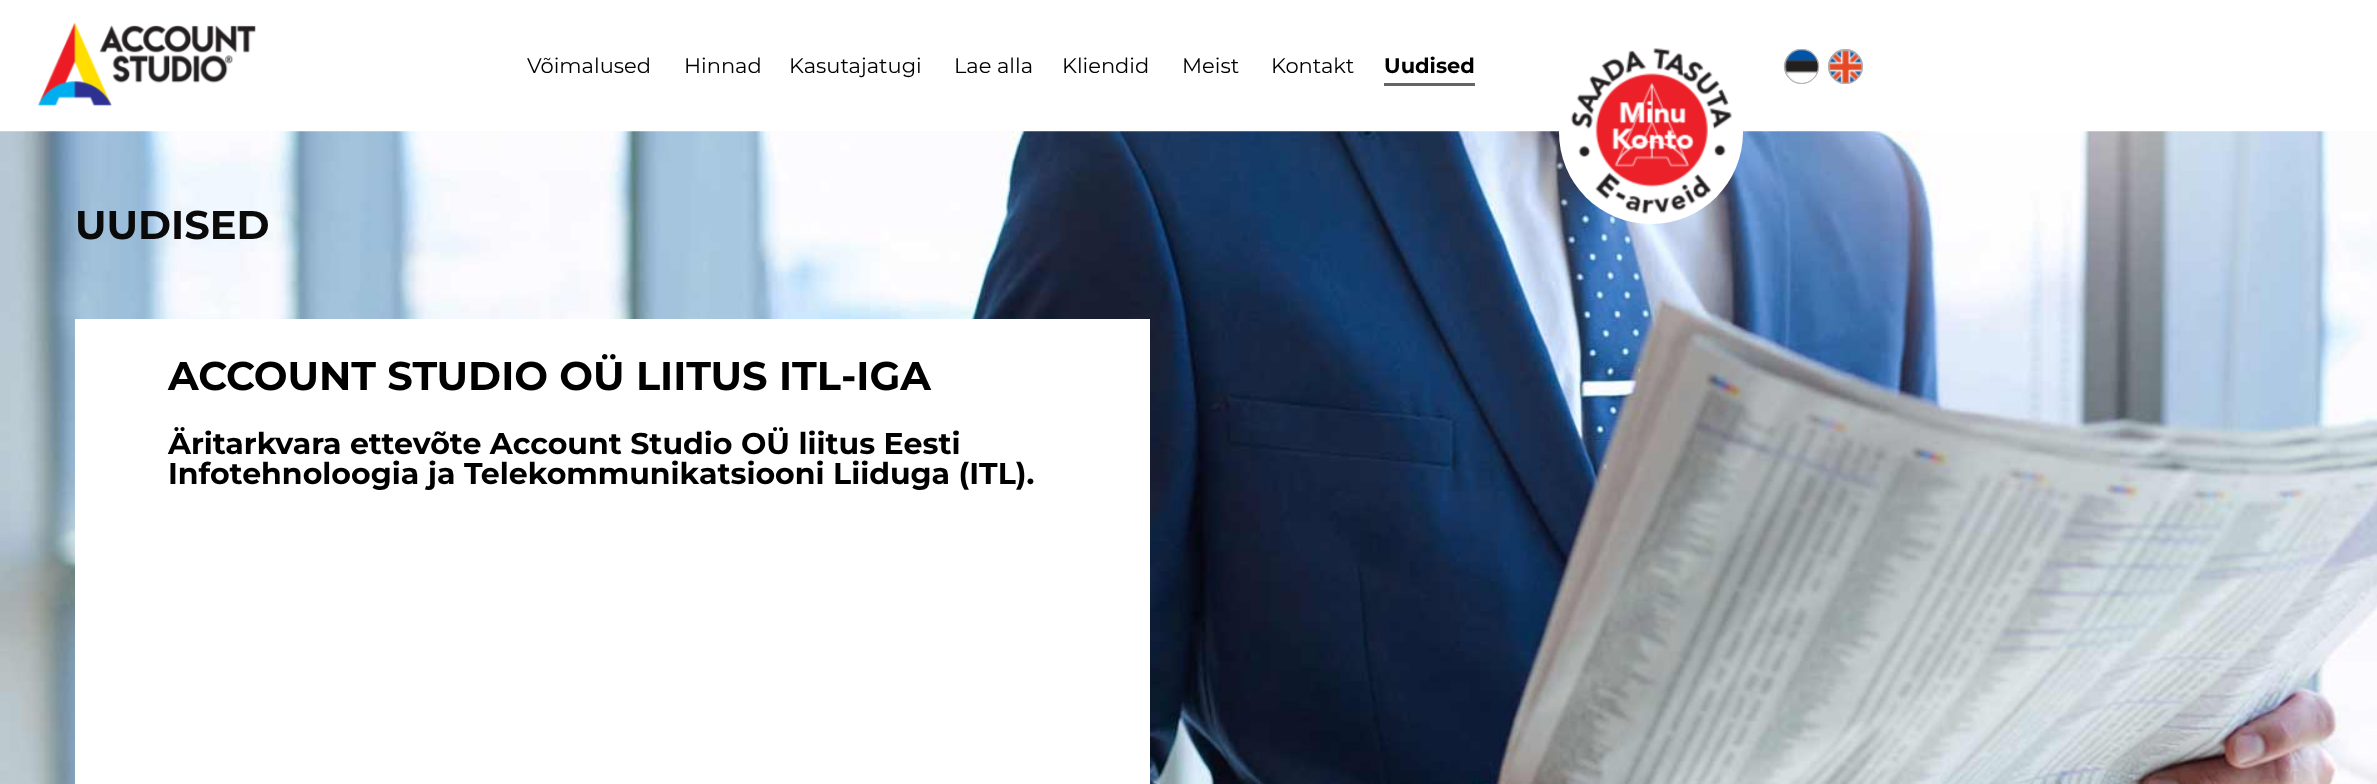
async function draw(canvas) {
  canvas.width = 2377
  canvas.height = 784
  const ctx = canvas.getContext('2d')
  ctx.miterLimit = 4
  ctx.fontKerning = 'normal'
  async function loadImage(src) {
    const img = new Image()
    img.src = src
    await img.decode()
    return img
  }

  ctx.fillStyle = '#fff'
  ctx.fillRect(0, 0, 2377, 784)
  ctx.drawImage(await loadImage('image0.png'), 38, 22, 218, 85)
  ctx.font = '21px Montserrat'
  ctx.fillStyle = '#000'
  ctx.fillText('Võimalused', 527, 73)
  ctx.fillText('Hinnad', 684, 73)
  ctx.fillText('Kasutajatugi', 789, 73)
  ctx.fillText('Lae alla', 954, 73)
  ctx.fillText('Kliendid', 1062, 73)
  ctx.fillText('Meist', 1182, 73)
  ctx.fillText('Kontakt', 1271, 73)
  ctx.font = 'bold 21px Montserrat'
  ctx.fillText('Uudised', 1384, 73)
  ctx.fillStyle = '#646567'
  ctx.fillRect(1384, 83, 91, 3)
  ctx.drawImage(await loadImage('image4.png'), 0, 131, 2377, 653)
  ctx.fillStyle = '#fff'
  ctx.beginPath()
  ctx.roundRect(1559, 41, 184, 183, 91.5)
  ctx.fill()
  ctx.drawImage(await loadImage('image1.png'), 1570, 48, 162, 167)
  ctx.fillStyle = '#b3b3b3'
  ctx.beginPath()
  ctx.arc(1801.5, 66.5, 17.5, 0, 2 * Math.PI)
  ctx.fill()
  ctx.drawImage(await loadImage('image2.png'), 1783, 49, 37, 35)
  ctx.beginPath()
  ctx.arc(1801.5, 66.5, 17, 0, 2 * Math.PI)
  ctx.strokeStyle = '#b3b3b3'
  ctx.stroke()
  ctx.beginPath()
  ctx.arc(1845.5, 66.5, 17.5, 0, 2 * Math.PI)
  ctx.fill()
  ctx.drawImage(await loadImage('image3.png'), 1828, 49, 35, 36)
  ctx.beginPath()
  ctx.arc(1845.5, 66.5, 17, 0, 2 * Math.PI)
  ctx.stroke()
  ctx.font = 'bold 40px Montserrat'
  ctx.fillStyle = '#0a0a0a'
  ctx.fillText('UUDISED', 75, 239)
  ctx.fillStyle = '#fff'
  ctx.fillRect(75, 319, 1075, 465)
  ctx.fillStyle = '#000'
  ctx.fillText('ACCOUNT STUDIO OÜ LIITUS ITL-IGA', 168, 390)
  ctx.font = 'bold 30px Montserrat'
  ctx.fillText('Äritarkvara ettevõte Account Studio OÜ liitus Eesti', 168, 454)
  ctx.fillText('Infotehnoloogia ja Telekommunikatsiooni Liiduga (ITL).', 168, 484)
}

draw(document.querySelector('canvas'))
